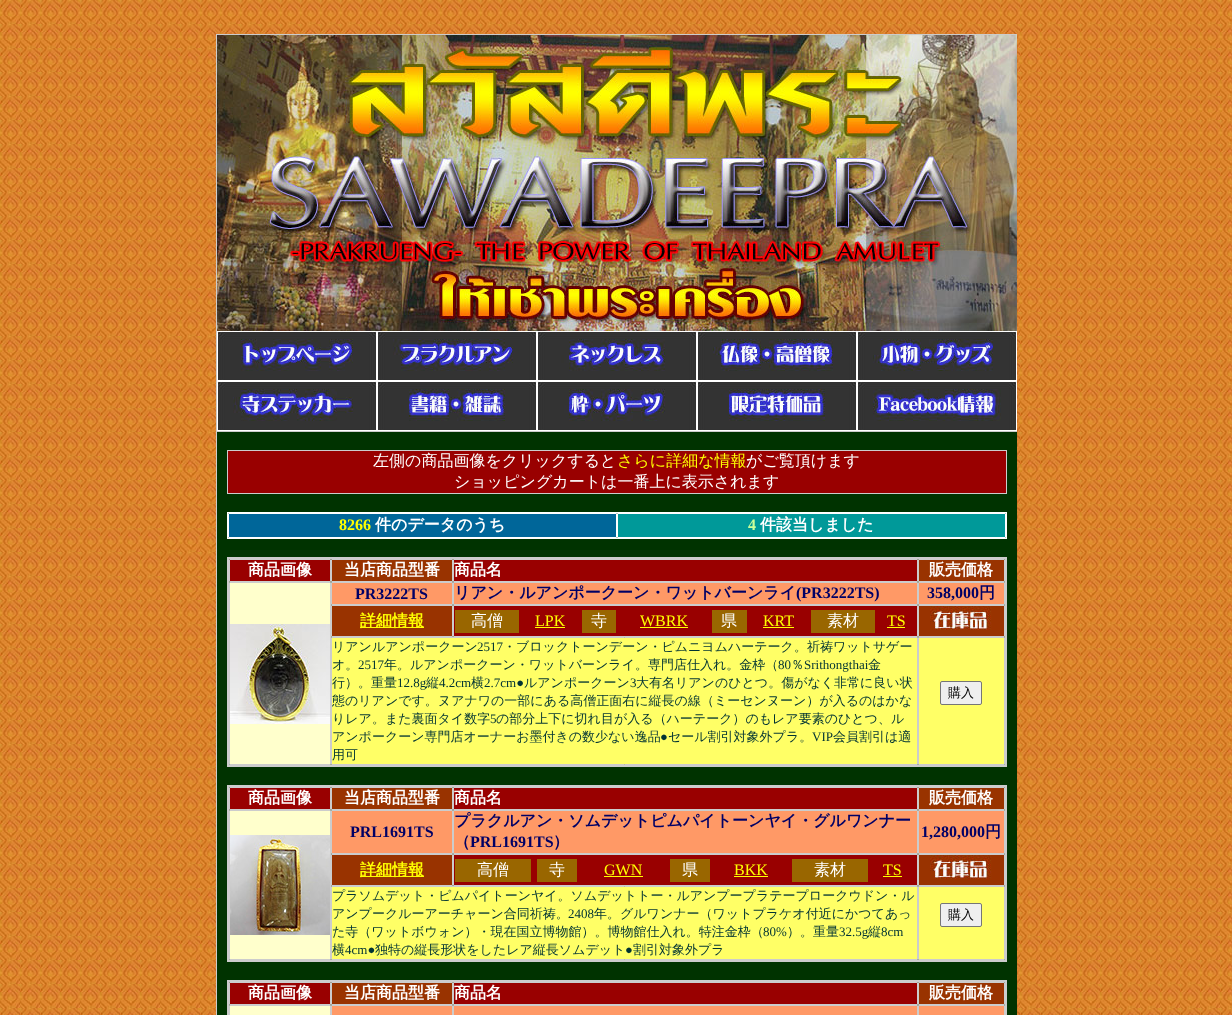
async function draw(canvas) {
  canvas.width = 1232
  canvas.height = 1015
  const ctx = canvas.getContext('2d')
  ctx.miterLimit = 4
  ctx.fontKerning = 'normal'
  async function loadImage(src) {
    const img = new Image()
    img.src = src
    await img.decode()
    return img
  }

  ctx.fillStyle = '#fff'
  ctx.fillRect(0, 0, 1232, 1015)
  ctx.drawImage(await loadImage('image0.png'), 0, 0, 1232, 1015)
  ctx.fillStyle = '#ccc'
  ctx.fillRect(216, 34, 1, 981)
  ctx.fillStyle = '#030'
  ctx.fillRect(217, 432, 800, 583)
  ctx.fillStyle = '#ccc'
  ctx.fillRect(217, 34, 800, 1)
  ctx.fillStyle = '#fff'
  ctx.fillRect(217, 380, 800, 51)
  ctx.drawImage(await loadImage('image1.png'), 217, 35, 800, 296)
  ctx.drawImage(await loadImage('image2.png'), 217, 331, 160, 49)
  ctx.drawImage(await loadImage('image3.png'), 377, 331, 160, 49)
  ctx.drawImage(await loadImage('image4.png'), 537, 331, 160, 49)
  ctx.drawImage(await loadImage('image5.png'), 697, 331, 160, 49)
  ctx.drawImage(await loadImage('image6.png'), 857, 331, 160, 49)
  ctx.drawImage(await loadImage('image7.png'), 217, 381, 160, 49)
  ctx.drawImage(await loadImage('image8.png'), 377, 381, 160, 49)
  ctx.drawImage(await loadImage('image9.png'), 537, 381, 160, 49)
  ctx.drawImage(await loadImage('image10.png'), 697, 381, 160, 49)
  ctx.drawImage(await loadImage('image11.png'), 857, 381, 160, 49)
  ctx.fillStyle = '#ccc'
  ctx.fillRect(217, 431, 800, 1)
  ctx.fillRect(227, 450, 780, 1)
  ctx.fillRect(227, 451, 1, 42)
  ctx.fillStyle = '#900'
  ctx.fillRect(228, 451, 778, 42)
  ctx.font = '500 16px WenQuanYi Zen Hei'
  ctx.fillStyle = '#fff'
  ctx.fillText('左側の商品画像をクリックすると', 373, 466)
  ctx.fillStyle = '#ff0'
  ctx.fillText('さらに詳細な情報', 617, 466)
  ctx.fillStyle = '#fff'
  ctx.fillText('がご覧頂けます', 746, 466)
  ctx.fillText('ショッピングカートは一番上に表示されます', 454, 487)
  ctx.fillStyle = '#ccc'
  ctx.fillRect(1006, 451, 1, 42)
  ctx.fillRect(227, 493, 780, 1)
  ctx.strokeStyle = '#fff'
  ctx.strokeRect(227.5, 512.5, 779, 26)
  ctx.fillStyle = '#069'
  ctx.beginPath()
  ctx.rect(228.5, 513.5, 388, 24)
  ctx.fill()
  ctx.stroke()
  ctx.font = 'bold 16px Liberation Serif'
  ctx.fillStyle = '#ff0'
  ctx.fillText('8266', 339, 530)
  ctx.font = 'bold 16px WenQuanYi Zen Hei'
  ctx.fillStyle = '#fff'
  ctx.fillText('件のデータのうち', 375, 530)
  ctx.fillStyle = '#099'
  ctx.beginPath()
  ctx.rect(617.5, 513.5, 388, 24)
  ctx.fill()
  ctx.stroke()
  ctx.font = 'bold 16px Liberation Serif'
  ctx.fillStyle = '#cf9'
  ctx.fillText('4', 748, 530)
  ctx.font = 'bold 16px WenQuanYi Zen Hei'
  ctx.fillStyle = '#fff'
  ctx.fillText('件該当しました', 760, 530)
  ctx.fillStyle = '#ccc'
  ctx.fillRect(227, 557, 780, 1)
  ctx.fillRect(227, 558, 1, 208)
  ctx.strokeStyle = '#ccc'
  ctx.strokeRect(228.5, 558.5, 777, 207)
  ctx.fillStyle = '#900'
  ctx.beginPath()
  ctx.rect(229.5, 559.5, 101, 22)
  ctx.fill()
  ctx.stroke()
  ctx.fillStyle = '#fff'
  ctx.fillText('商品画像', 248, 575)
  ctx.fillStyle = '#930'
  ctx.beginPath()
  ctx.rect(331.5, 559.5, 121, 22)
  ctx.fill()
  ctx.stroke()
  ctx.fillStyle = '#fff'
  ctx.fillText('当店商品型番', 344, 575)
  ctx.fillStyle = '#900'
  ctx.beginPath()
  ctx.rect(453.5, 559.5, 464, 22)
  ctx.fill()
  ctx.stroke()
  ctx.fillStyle = '#fff'
  ctx.fillText('商品名', 454, 575)
  ctx.fillStyle = '#930'
  ctx.beginPath()
  ctx.rect(918.5, 559.5, 86, 22)
  ctx.fill()
  ctx.stroke()
  ctx.fillStyle = '#fff'
  ctx.fillText('販売価格', 929, 575)
  ctx.fillStyle = '#ffc'
  ctx.beginPath()
  ctx.rect(229.5, 582.5, 101, 182)
  ctx.fill()
  ctx.stroke()
  ctx.drawImage(await loadImage('image12.png'), 230, 624, 100, 100)
  ctx.fillStyle = '#f96'
  ctx.beginPath()
  ctx.rect(331.5, 582.5, 121, 22)
  ctx.fill()
  ctx.stroke()
  ctx.font = 'bold 16px Liberation Serif'
  ctx.fillStyle = '#006'
  ctx.fillText('PR3222TS', 355, 599)
  ctx.fillStyle = '#f96'
  ctx.beginPath()
  ctx.rect(453.5, 582.5, 464, 22)
  ctx.fill()
  ctx.stroke()
  ctx.font = 'bold 16px WenQuanYi Zen Hei'
  ctx.fillStyle = '#006'
  ctx.fillText('リアン・ルアンポークーン・ワットバーンライ', 454, 598)
  ctx.font = 'bold 16px Liberation Serif'
  ctx.fillText('(PR3222TS)', 796, 598)
  ctx.fillStyle = '#f96'
  ctx.beginPath()
  ctx.rect(918.5, 582.5, 86, 22)
  ctx.fill()
  ctx.stroke()
  ctx.fillStyle = '#006'
  ctx.fillText('358,000', 927, 598)
  ctx.font = 'bold 16px WenQuanYi Zen Hei'
  ctx.fillText('円', 979, 598)
  ctx.fillStyle = '#930'
  ctx.beginPath()
  ctx.rect(331.5, 605.5, 121, 31)
  ctx.fill()
  ctx.stroke()
  ctx.fillStyle = '#ff0'
  ctx.fillRect(360, 627, 64, 1)
  ctx.fillText('詳細情報', 360, 626)
  ctx.fillStyle = '#900'
  ctx.beginPath()
  ctx.rect(453.5, 605.5, 464, 31)
  ctx.fill()
  ctx.stroke()
  ctx.fillStyle = '#960'
  ctx.fillRect(455, 610, 64, 23)
  ctx.font = '500 16px WenQuanYi Zen Hei'
  ctx.fillStyle = '#fff'
  ctx.fillText('高僧', 471, 626)
  ctx.font = '16px Liberation Serif'
  ctx.fillStyle = '#ff0'
  ctx.fillText('LPK', 535, 626)
  ctx.fillRect(535, 627, 30, 1)
  ctx.fillStyle = '#960'
  ctx.fillRect(582, 610, 34, 23)
  ctx.font = '500 16px WenQuanYi Zen Hei'
  ctx.fillStyle = '#fff'
  ctx.fillText('寺', 591, 626)
  ctx.font = '16px Liberation Serif'
  ctx.fillStyle = '#ff0'
  ctx.fillText('WBRK', 640, 626)
  ctx.fillRect(640, 627, 48, 1)
  ctx.fillStyle = '#960'
  ctx.fillRect(712, 610, 35, 23)
  ctx.font = '500 16px WenQuanYi Zen Hei'
  ctx.fillStyle = '#fff'
  ctx.fillText('県', 721, 626)
  ctx.font = '16px Liberation Serif'
  ctx.fillStyle = '#ff0'
  ctx.fillText('KRT', 763, 626)
  ctx.fillRect(763, 627, 31, 1)
  ctx.fillStyle = '#960'
  ctx.fillRect(811, 610, 64, 23)
  ctx.font = '500 16px WenQuanYi Zen Hei'
  ctx.fillStyle = '#fff'
  ctx.fillText('素材', 827, 626)
  ctx.font = '16px Liberation Serif'
  ctx.fillStyle = '#ff0'
  ctx.fillText('TS', 887, 626)
  ctx.fillRect(887, 627, 18, 1)
  ctx.fillStyle = '#930'
  ctx.beginPath()
  ctx.rect(918.5, 605.5, 86, 31)
  ctx.fill()
  ctx.stroke()
  ctx.drawImage(await loadImage('image13.png'), 930, 606, 62, 24)
  ctx.fillStyle = '#ff6'
  ctx.beginPath()
  ctx.rect(331.5, 637.5, 586, 127)
  ctx.fill()
  ctx.stroke()
  ctx.font = '500 13px WenQuanYi Zen Hei'
  ctx.fillStyle = '#033'
  ctx.fillText('リアンルアンポークーン', 332, 651)
  ctx.font = '13px Liberation Serif'
  ctx.fillText('2517', 477, 651)
  ctx.font = '500 13px WenQuanYi Zen Hei'
  ctx.fillText('・ブロックトーンデーン・ピムニヨムハーテーク。祈祷ワットサゲー', 503, 651)
  ctx.fillText('オ。', 332, 669)
  ctx.font = '13px Liberation Serif'
  ctx.fillText('2517', 358, 669)
  ctx.font = '500 13px WenQuanYi Zen Hei'
  ctx.fillText('年。ルアンポークーン・ワットバーンライ。専門店仕入れ。金枠（', 384, 669)
  ctx.font = '13px Liberation Serif'
  ctx.fillText('80', 778, 669)
  ctx.font = '500 13px WenQuanYi Zen Hei'
  ctx.fillText('％', 791, 669)
  ctx.font = '13px Liberation Serif'
  ctx.fillText('Srithongthai', 804, 669)
  ctx.font = '500 13px WenQuanYi Zen Hei'
  ctx.fillText('金', 868, 669)
  ctx.fillText('行）。重量', 332, 687)
  ctx.font = '13px Liberation Serif'
  ctx.fillText('12.8g', 397, 687)
  ctx.font = '500 13px WenQuanYi Zen Hei'
  ctx.fillText('縦', 426, 687)
  ctx.font = '13px Liberation Serif'
  ctx.fillText('4.2cm', 439, 687)
  ctx.font = '500 13px WenQuanYi Zen Hei'
  ctx.fillText('横', 471, 687)
  ctx.font = '13px Liberation Serif'
  ctx.fillText('2.7cm●', 484, 687)
  ctx.font = '500 13px WenQuanYi Zen Hei'
  ctx.fillText('ルアンポークーン', 524, 687)
  ctx.font = '13px Liberation Serif'
  ctx.fillText('3', 630, 687)
  ctx.font = '500 13px WenQuanYi Zen Hei'
  ctx.fillText('大有名リアンのひとつ。傷がなく非常に良い状', 636, 687)
  ctx.fillText('態のリアンです。ヌアナワの一部にある高僧正面右に縦長の線（ミーセンヌーン）が入るのはかな', 332, 705)
  ctx.fillText('りレア。また裏面タイ数字', 332, 723)
  ctx.font = '13px Liberation Serif'
  ctx.fillText('5', 490, 723)
  ctx.font = '500 13px WenQuanYi Zen Hei'
  ctx.fillText('の部分上下に切れ目が入る（ハーテーク）のもレア要素のひとつ、ル', 496, 723)
  ctx.fillText('アンポークーン専門店オーナーお墨付きの数少ない逸品', 332, 741)
  ctx.font = '13px Liberation Serif'
  ctx.fillText('●', 660, 741)
  ctx.font = '500 13px WenQuanYi Zen Hei'
  ctx.fillText('セール割引対象外プラ。', 668, 741)
  ctx.font = '13px Liberation Serif'
  ctx.fillText('VIP', 812, 741)
  ctx.font = '500 13px WenQuanYi Zen Hei'
  ctx.fillText('会員割引は適', 833, 741)
  ctx.fillText('用可', 332, 759)
  ctx.fillStyle = '#ff6'
  ctx.beginPath()
  ctx.rect(918.5, 637.5, 86, 127)
  ctx.fill()
  ctx.stroke()
  ctx.fillStyle = '#efefef'
  ctx.beginPath()
  ctx.roundRect(940.5, 681.5, 41, 23, 1.5)
  ctx.fill()
  ctx.strokeStyle = '#767676'
  ctx.stroke()
  ctx.fillStyle = '#000'
  ctx.fillText('購入', 948, 697)
  ctx.fillStyle = '#ccc'
  ctx.fillRect(1006, 558, 1, 208)
  ctx.fillRect(227, 766, 780, 1)
  ctx.fillRect(227, 785, 780, 1)
  ctx.fillRect(227, 786, 1, 175)
  ctx.strokeStyle = '#ccc'
  ctx.strokeRect(228.5, 786.5, 777, 174)
  ctx.fillStyle = '#900'
  ctx.beginPath()
  ctx.rect(229.5, 787.5, 101, 22)
  ctx.fill()
  ctx.stroke()
  ctx.font = 'bold 16px WenQuanYi Zen Hei'
  ctx.fillStyle = '#fff'
  ctx.fillText('商品画像', 248, 803)
  ctx.fillStyle = '#930'
  ctx.beginPath()
  ctx.rect(331.5, 787.5, 121, 22)
  ctx.fill()
  ctx.stroke()
  ctx.fillStyle = '#fff'
  ctx.fillText('当店商品型番', 344, 803)
  ctx.fillStyle = '#900'
  ctx.beginPath()
  ctx.rect(453.5, 787.5, 464, 22)
  ctx.fill()
  ctx.stroke()
  ctx.fillStyle = '#fff'
  ctx.fillText('商品名', 454, 803)
  ctx.fillStyle = '#930'
  ctx.beginPath()
  ctx.rect(918.5, 787.5, 86, 22)
  ctx.fill()
  ctx.stroke()
  ctx.fillStyle = '#fff'
  ctx.fillText('販売価格', 929, 803)
  ctx.fillStyle = '#ffc'
  ctx.beginPath()
  ctx.rect(229.5, 810.5, 101, 149)
  ctx.fill()
  ctx.stroke()
  ctx.drawImage(await loadImage('image14.png'), 230, 835, 100, 100)
  ctx.fillStyle = '#f96'
  ctx.beginPath()
  ctx.rect(331.5, 810.5, 121, 43)
  ctx.fill()
  ctx.stroke()
  ctx.font = 'bold 16px Liberation Serif'
  ctx.fillStyle = '#006'
  ctx.fillText('PRL1691TS', 350, 837)
  ctx.fillStyle = '#f96'
  ctx.beginPath()
  ctx.rect(453.5, 810.5, 464, 43)
  ctx.fill()
  ctx.stroke()
  ctx.font = 'bold 16px WenQuanYi Zen Hei'
  ctx.fillStyle = '#006'
  ctx.fillText('プラクルアン・ソムデットピムパイトーンヤイ・グルワンナー', 454, 826)
  ctx.fillText('（', 454, 847)
  ctx.font = 'bold 16px Liberation Serif'
  ctx.fillText('PRL1691TS', 470, 847)
  ctx.font = 'bold 16px WenQuanYi Zen Hei'
  ctx.fillText('）', 553, 847)
  ctx.fillStyle = '#f96'
  ctx.beginPath()
  ctx.rect(918.5, 810.5, 86, 43)
  ctx.fill()
  ctx.stroke()
  ctx.font = 'bold 16px Liberation Serif'
  ctx.fillStyle = '#006'
  ctx.fillText('1,280,000', 921, 837)
  ctx.font = 'bold 16px WenQuanYi Zen Hei'
  ctx.fillText('円', 985, 837)
  ctx.fillStyle = '#930'
  ctx.beginPath()
  ctx.rect(331.5, 854.5, 121, 31)
  ctx.fill()
  ctx.stroke()
  ctx.fillStyle = '#ff0'
  ctx.fillRect(360, 876, 64, 1)
  ctx.fillText('詳細情報', 360, 875)
  ctx.fillStyle = '#900'
  ctx.beginPath()
  ctx.rect(453.5, 854.5, 464, 31)
  ctx.fill()
  ctx.stroke()
  ctx.fillStyle = '#960'
  ctx.fillRect(455, 859, 76, 23)
  ctx.font = '500 16px WenQuanYi Zen Hei'
  ctx.fillStyle = '#fff'
  ctx.fillText('高僧', 477, 875)
  ctx.fillStyle = '#960'
  ctx.fillRect(537, 859, 40, 23)
  ctx.fillStyle = '#fff'
  ctx.fillText('寺', 549, 875)
  ctx.font = '16px Liberation Serif'
  ctx.fillStyle = '#ff0'
  ctx.fillText('GWN', 604, 875)
  ctx.fillRect(604, 876, 39, 1)
  ctx.fillStyle = '#960'
  ctx.fillRect(670, 859, 40, 23)
  ctx.font = '500 16px WenQuanYi Zen Hei'
  ctx.fillStyle = '#fff'
  ctx.fillText('県', 682, 875)
  ctx.font = '16px Liberation Serif'
  ctx.fillStyle = '#ff0'
  ctx.fillText('BKK', 734, 875)
  ctx.fillRect(734, 876, 34, 1)
  ctx.fillStyle = '#960'
  ctx.fillRect(792, 859, 76, 23)
  ctx.font = '500 16px WenQuanYi Zen Hei'
  ctx.fillStyle = '#fff'
  ctx.fillText('素材', 814, 875)
  ctx.font = '16px Liberation Serif'
  ctx.fillStyle = '#ff0'
  ctx.fillText('TS', 883, 875)
  ctx.fillRect(883, 876, 19, 1)
  ctx.fillStyle = '#930'
  ctx.beginPath()
  ctx.rect(918.5, 854.5, 86, 31)
  ctx.fill()
  ctx.stroke()
  ctx.drawImage(await loadImage('image13.png'), 930, 855, 62, 24)
  ctx.fillStyle = '#ff6'
  ctx.beginPath()
  ctx.rect(331.5, 886.5, 586, 73)
  ctx.fill()
  ctx.stroke()
  ctx.font = '500 13px WenQuanYi Zen Hei'
  ctx.fillStyle = '#033'
  ctx.fillText('プラソムデット・ピムパイトーンヤイ。ソムデットトー・ルアンプープラテープロークウドン・ル', 332, 900)
  ctx.fillText('アンプークルーアーチャーン合同祈祷。', 332, 918)
  ctx.font = '13px Liberation Serif'
  ctx.fillText('2408', 568, 918)
  ctx.font = '500 13px WenQuanYi Zen Hei'
  ctx.fillText('年。グルワンナー（ワットプラケオ付近にかつてあっ', 594, 918)
  ctx.fillText('た寺（ワットボウォン）・現在国立博物館）。博物館仕入れ。特注金枠（', 332, 936)
  ctx.font = '13px Liberation Serif'
  ctx.fillText('80%', 763, 936)
  ctx.font = '500 13px WenQuanYi Zen Hei'
  ctx.fillText('）。重量', 787, 936)
  ctx.font = '13px Liberation Serif'
  ctx.fillText('32.5g', 839, 936)
  ctx.font = '500 13px WenQuanYi Zen Hei'
  ctx.fillText('縦', 868, 936)
  ctx.font = '13px Liberation Serif'
  ctx.fillText('8cm', 881, 936)
  ctx.font = '500 13px WenQuanYi Zen Hei'
  ctx.fillText('横', 332, 954)
  ctx.font = '13px Liberation Serif'
  ctx.fillText('4cm●', 345, 954)
  ctx.font = '500 13px WenQuanYi Zen Hei'
  ctx.fillText('独特の縦長形状をしたレア縦長ソムデット', 375, 954)
  ctx.font = '13px Liberation Serif'
  ctx.fillText('●', 625, 954)
  ctx.font = '500 13px WenQuanYi Zen Hei'
  ctx.fillText('割引対象外プラ', 633, 954)
  ctx.fillStyle = '#ff6'
  ctx.beginPath()
  ctx.rect(918.5, 886.5, 86, 73)
  ctx.fill()
  ctx.stroke()
  ctx.fillStyle = '#efefef'
  ctx.beginPath()
  ctx.roundRect(940.5, 903.5, 41, 23, 1.5)
  ctx.fill()
  ctx.strokeStyle = '#767676'
  ctx.stroke()
  ctx.fillStyle = '#000'
  ctx.fillText('購入', 948, 919)
  ctx.fillStyle = '#ccc'
  ctx.fillRect(1006, 786, 1, 175)
  ctx.fillRect(227, 961, 780, 1)
  ctx.fillRect(227, 980, 780, 1)
  ctx.fillRect(227, 981, 1, 34)
  ctx.strokeStyle = '#ccc'
  ctx.strokeRect(228.5, 981.5, 777, 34)
  ctx.fillStyle = '#900'
  ctx.beginPath()
  ctx.rect(229.5, 982.5, 101, 22)
  ctx.fill()
  ctx.stroke()
  ctx.font = 'bold 16px WenQuanYi Zen Hei'
  ctx.fillStyle = '#fff'
  ctx.fillText('商品画像', 248, 998)
  ctx.fillStyle = '#930'
  ctx.beginPath()
  ctx.rect(331.5, 982.5, 121, 22)
  ctx.fill()
  ctx.stroke()
  ctx.fillStyle = '#fff'
  ctx.fillText('当店商品型番', 344, 998)
  ctx.fillStyle = '#900'
  ctx.beginPath()
  ctx.rect(453.5, 982.5, 464, 22)
  ctx.fill()
  ctx.stroke()
  ctx.fillStyle = '#fff'
  ctx.fillText('商品名', 454, 998)
  ctx.fillStyle = '#930'
  ctx.beginPath()
  ctx.rect(918.5, 982.5, 86, 22)
  ctx.fill()
  ctx.stroke()
  ctx.fillStyle = '#fff'
  ctx.fillText('販売価格', 929, 998)
  ctx.fillStyle = '#ffc'
  ctx.beginPath()
  ctx.rect(229.5, 1005.5, 101, 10)
  ctx.fill()
  ctx.stroke()
  ctx.fillStyle = '#f96'
  ctx.beginPath()
  ctx.rect(331.5, 1005.5, 121, 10)
  ctx.fill()
  ctx.stroke()
  ctx.beginPath()
  ctx.rect(453.5, 1005.5, 464, 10)
  ctx.fill()
  ctx.stroke()
  ctx.beginPath()
  ctx.rect(918.5, 1005.5, 86, 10)
  ctx.fill()
  ctx.stroke()
  ctx.fillStyle = '#ccc'
  ctx.fillRect(1006, 981, 1, 34)
}

draw(document.querySelector('canvas'))
